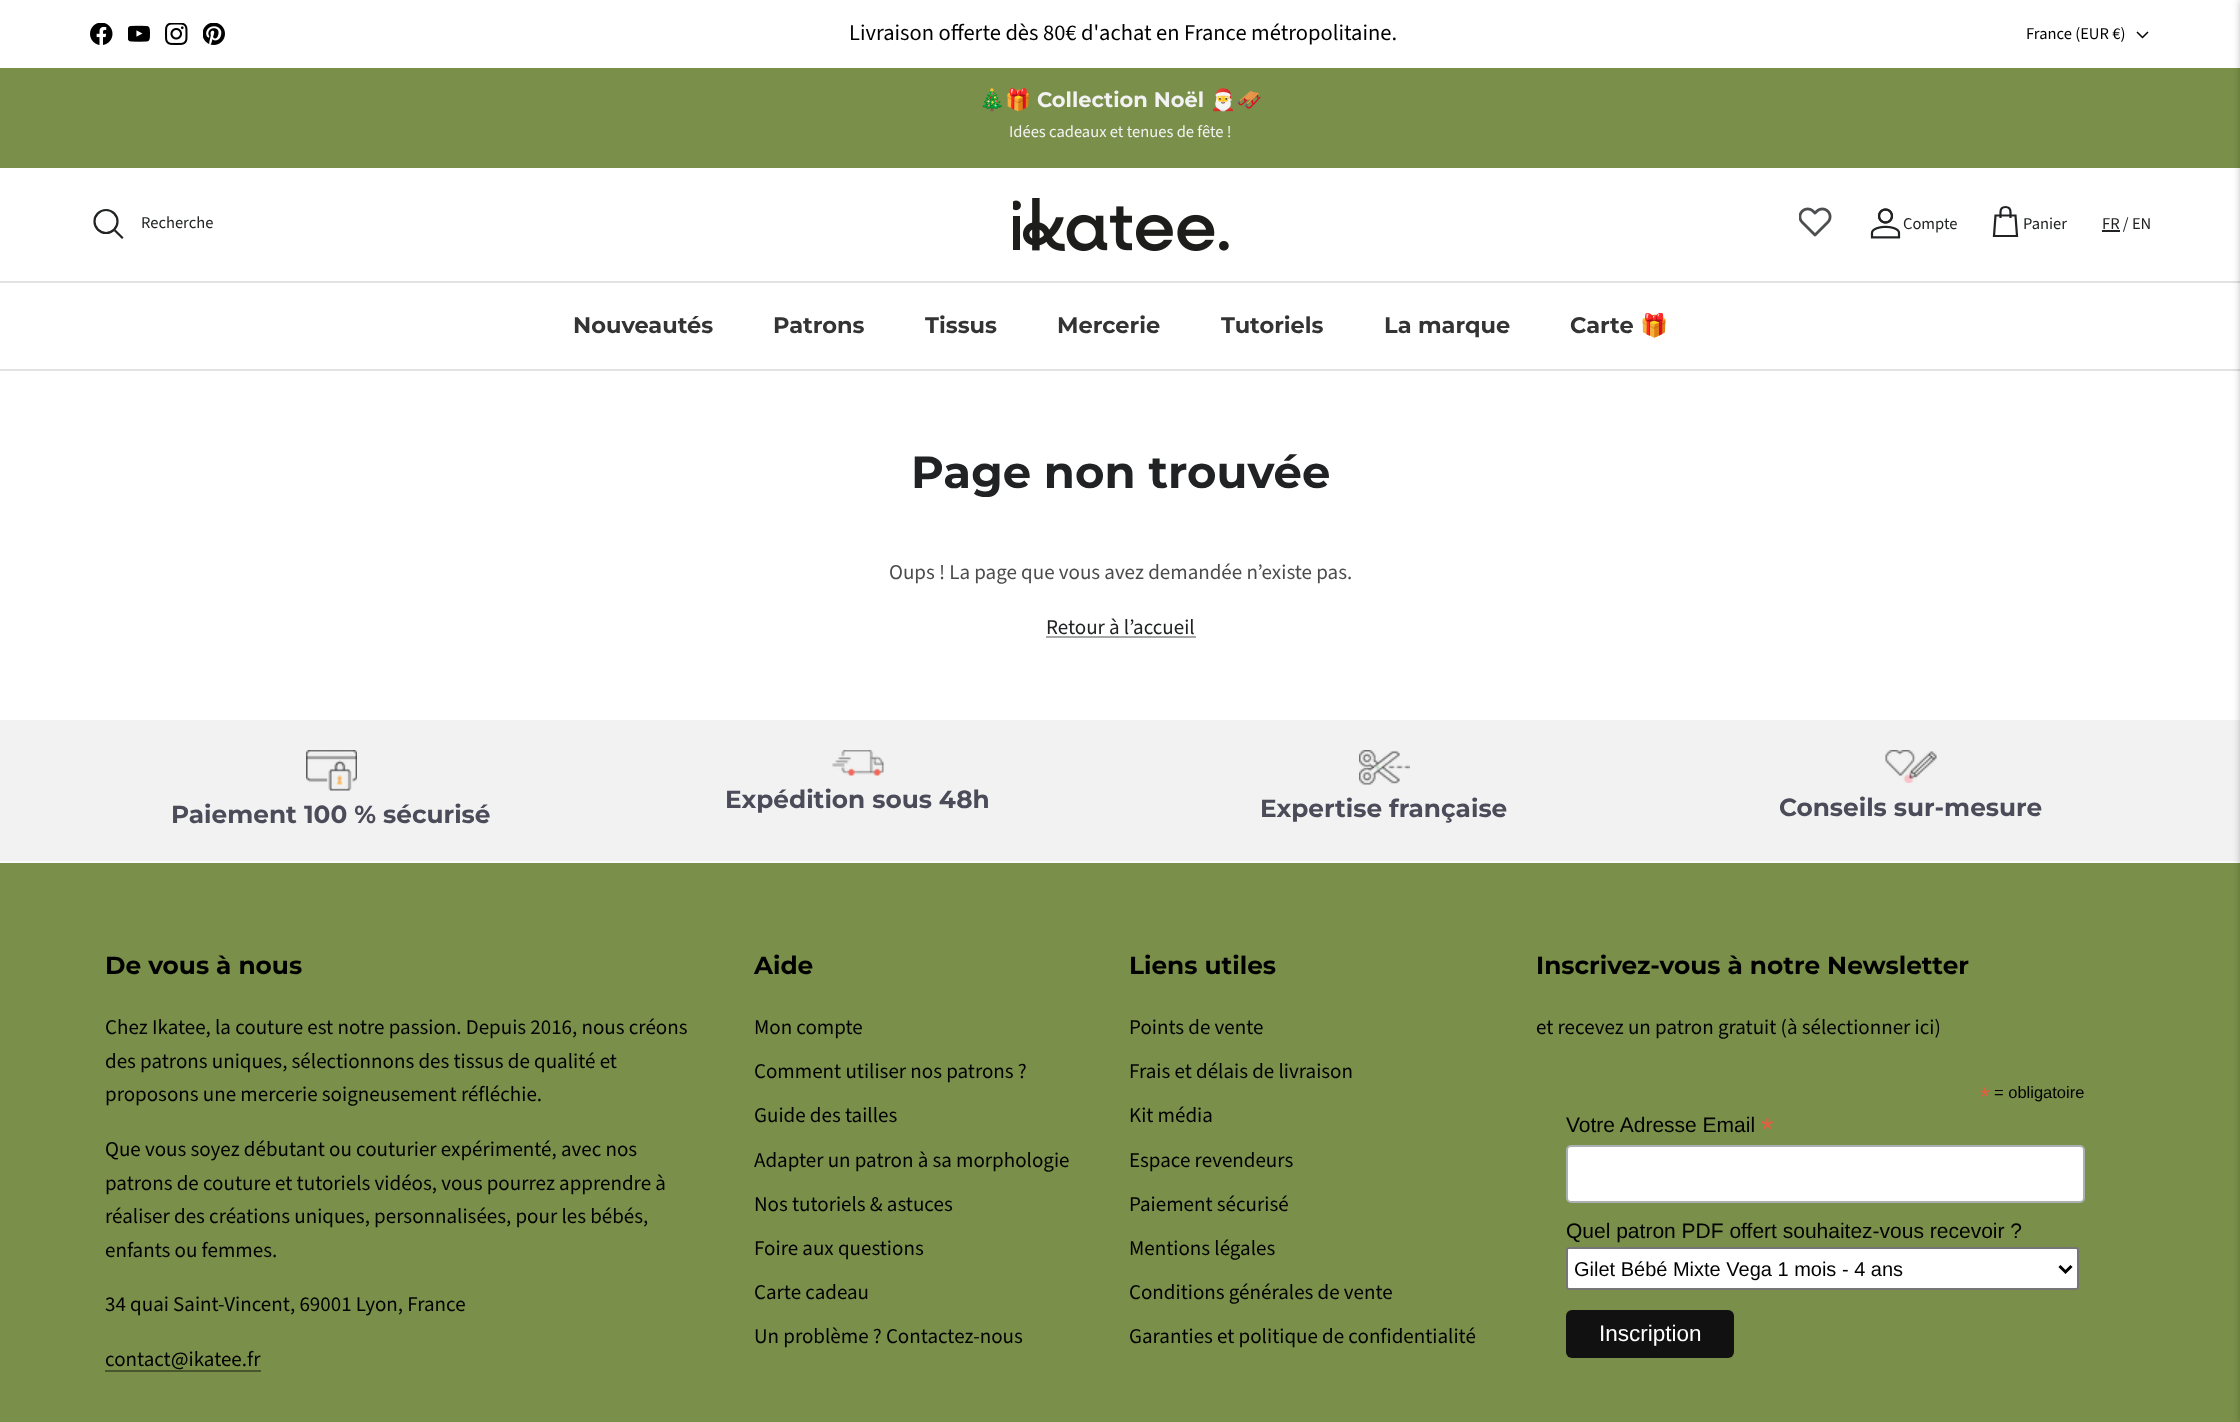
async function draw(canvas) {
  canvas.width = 2240
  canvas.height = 1422
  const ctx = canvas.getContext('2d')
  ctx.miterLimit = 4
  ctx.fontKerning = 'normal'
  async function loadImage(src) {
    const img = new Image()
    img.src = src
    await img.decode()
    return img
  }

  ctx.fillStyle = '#fff'
  ctx.fillRect(0, 0, 2240, 1422)
  ctx.drawImage(await loadImage('image0.png'), 90, 23, 23, 22)
  ctx.drawImage(await loadImage('image1.png'), 128, 25, 22, 17)
  ctx.drawImage(await loadImage('image2.png'), 165, 23, 23, 22)
  ctx.drawImage(await loadImage('image3.png'), 203, 23, 22, 22)
  ctx.font = '22.5px Source Sans Pro'
  ctx.fillStyle = '#000'
  ctx.fillText('Livraison offerte dès 80€ d\'achat en France métropolitaine.', 849, 40)
  ctx.font = '16.5px Source Sans Pro'
  ctx.fillText('France (EUR €)', 2026, 39)
  ctx.beginPath()
  ctx.moveTo(2148, 32)
  ctx.lineTo(2142.5, 37.5)
  ctx.lineTo(2137, 32)
  ctx.strokeStyle = '#000'
  ctx.lineWidth = 1.5
  ctx.stroke()
  ctx.fillStyle = '#7a8f4a'
  ctx.fillRect(0, 68, 2240, 100)
  ctx.font = 'bold 21px Noto Color Emoji'
  ctx.fillStyle = '#f2f2f2'
  ctx.fillText('🎄🎁', 979, 107)
  ctx.font = 'bold 21px Montserrat'
  ctx.fillText('Collection Noël', 1037, 107)
  ctx.font = 'bold 21px Noto Color Emoji'
  ctx.fillText('🎅🛷', 1210, 107)
  ctx.font = '16.5px Source Sans Pro'
  ctx.fillText('Idées cadeaux et tenues de fête !', 1009, 137)
  ctx.fillStyle = '#e2e2e2'
  ctx.fillRect(0, 281, 2240, 2)
  ctx.beginPath()
  ctx.arc(106, 221.5, 11.5, 0, 2 * Math.PI)
  ctx.strokeStyle = '#202223'
  ctx.lineWidth = 2.2
  ctx.stroke()
  ctx.fillStyle = '#202223'
  ctx.fillText('Recherche', 141, 228)
  ctx.beginPath()
  ctx.moveTo(115.5, 231)
  ctx.lineTo(122, 237.5)
  ctx.lineCap = 'square'
  ctx.stroke()
  ctx.drawImage(await loadImage('image4.png'), 1013, 198, 216, 53)
  ctx.drawImage(await loadImage('image5.png'), 1799, 207, 33, 30)
  ctx.drawImage(await loadImage('image6.png'), 1870, 208, 31, 31)
  ctx.fillText('Compte', 1903, 229)
  ctx.beginPath()
  ctx.moveTo(2010.5, 218)
  ctx.lineTo(2010.5, 212)
  ctx.bezierCurveTo(2010.5, 209, 2008.5, 207, 2005.5, 207)
  ctx.bezierCurveTo(2002.5, 207, 2000.5, 209, 2000.5, 212)
  ctx.lineTo(2000.5, 218)
  ctx.moveTo(1995.5, 215.5)
  ctx.lineTo(2015.5, 215.5)
  ctx.lineTo(2017, 236)
  ctx.lineTo(1994, 236)
  ctx.closePath()
  ctx.lineCap = 'butt'
  ctx.stroke()
  ctx.fillText('Panier', 2023, 229)
  ctx.fillRect(2102, 230, 18, 2)
  ctx.fillText('FR / EN', 2102, 229)
  ctx.fillStyle = '#e2e2e2'
  ctx.fillRect(0, 369, 2240, 2)
  ctx.font = 'bold 22.5px Montserrat'
  ctx.fillStyle = '#343434'
  ctx.fillText('Nouveautés', 573, 333)
  ctx.fillText('Patrons', 773, 333)
  ctx.fillText('Tissus', 925, 333)
  ctx.fillText('Mercerie', 1057, 333)
  ctx.fillText('Tutoriels', 1221, 333)
  ctx.fillText('La marque', 1384, 333)
  ctx.fillText('Carte', 1570, 333)
  ctx.font = 'bold 22.5px Noto Color Emoji'
  ctx.fillText('🎁', 1640, 333)
  ctx.font = 'bold 45px Montserrat'
  ctx.fillStyle = '#202223'
  ctx.fillText('Page non trouvée', 911, 488)
  ctx.font = '21px Source Sans Pro'
  ctx.fillStyle = '#4c4c4d'
  ctx.fillText('Oups ! La page que vous avez demandée n’existe pas.', 889, 579)
  ctx.fillStyle = '#202223'
  ctx.fillText('Retour à l’accueil', 1046, 634)
  ctx.fillStyle = '#a6a7a7'
  ctx.fillRect(1046, 636, 150, 2)
  ctx.fillStyle = '#f2f2f2'
  ctx.fillRect(0, 720, 2240, 141)
  ctx.drawImage(await loadImage('image7.png'), 306, 750, 51, 41)
  ctx.font = 'bold 24.8px Montserrat'
  ctx.fillStyle = '#4b4b59'
  ctx.fillText('Paiement 100 % sécurisé', 171, 823)
  ctx.drawImage(await loadImage('image8.png'), 832, 750, 52, 26)
  ctx.fillText('Expédition sous 48h', 725, 808)
  ctx.drawImage(await loadImage('image9.png'), 1359, 750, 51, 35)
  ctx.fillText('Expertise française', 1260, 817)
  ctx.drawImage(await loadImage('image10.png'), 1885, 750, 52, 33)
  ctx.fillText('Conseils sur-mesure', 1779, 816)
  ctx.fillStyle = '#7a8f4a'
  ctx.fillRect(0, 863, 2240, 559)
  ctx.fillStyle = '#fafafa'
  ctx.fillRect(0, 861, 2240, 2)
  ctx.fillStyle = '#00000080'
  ctx.filter = 'blur(5px)'
  ctx.beginPath()
  ctx.rect(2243, 0, 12, 1422)
  ctx.fill()
  ctx.filter = 'none'
  ctx.fillStyle = '#000'
  ctx.fillText('De vous à nous', 105, 974)
  ctx.font = '21px Source Sans Pro'
  ctx.fillText('Chez Ikatee, la couture est notre passion. Depuis 2016, nous créons', 105, 1034)
  ctx.fillText('des patrons uniques, sélectionnons des tissus de qualité et', 105, 1068)
  ctx.fillText('proposons une mercerie soigneusement réfléchie.', 105, 1101)
  ctx.fillText('Que vous soyez débutant ou couturier expérimenté, avec nos', 105, 1156)
  ctx.fillText('patrons de couture et tutoriels vidéos, vous pourrez apprendre à', 105, 1190)
  ctx.fillText('réaliser des créations uniques, personnalisées, pour les bébés,', 105, 1223)
  ctx.fillText('enfants ou femmes.', 105, 1257)
  ctx.fillText('34 quai Saint-Vincent, 69001 Lyon, France', 105, 1311)
  ctx.fillText('contact@ikatee.fr', 105, 1366)
  ctx.fillStyle = '#49562c'
  ctx.fillRect(105, 1370, 156, 2)
  ctx.font = 'bold 24.8px Montserrat'
  ctx.fillStyle = '#000'
  ctx.fillText('Aide', 754, 974)
  ctx.font = '21px Source Sans Pro'
  ctx.fillText('Mon compte', 754, 1034)
  ctx.fillText('Comment utiliser nos patrons ?', 754, 1078)
  ctx.fillText('Guide des tailles', 754, 1122)
  ctx.fillText('Adapter un patron à sa morphologie', 754, 1167)
  ctx.fillText('Nos tutoriels & astuces', 754, 1211)
  ctx.fillText('Foire aux questions', 754, 1255)
  ctx.fillText('Carte cadeau', 754, 1299)
  ctx.fillText('Un problème ? Contactez-nous', 754, 1343)
  ctx.font = 'bold 24.8px Montserrat'
  ctx.fillText('Liens utiles', 1129, 974)
  ctx.font = '21px Source Sans Pro'
  ctx.fillText('Points de vente', 1129, 1034)
  ctx.fillText('Frais et délais de livraison', 1129, 1078)
  ctx.fillText('Kit média', 1129, 1122)
  ctx.fillText('Espace revendeurs', 1129, 1167)
  ctx.fillText('Paiement sécurisé', 1129, 1211)
  ctx.fillText('Mentions légales', 1129, 1255)
  ctx.fillText('Conditions générales de vente', 1129, 1299)
  ctx.fillText('Garanties et politique de confidentialité', 1129, 1343)
  ctx.font = 'bold 24.8px Montserrat'
  ctx.fillText('Inscrivez-vous à notre Newsletter', 1536, 974)
  ctx.font = '21px Source Sans Pro'
  ctx.fillText('et recevez un patron gratuit (à sélectionner ici)', 1536, 1034)
  ctx.font = '25px Liberation Sans'
  ctx.fillStyle = '#e85c41'
  ctx.fillText('*', 1980, 1105)
  ctx.font = '16.5px Liberation Sans'
  ctx.fillStyle = '#000'
  ctx.fillText('= obligatoire', 1994, 1098)
  ctx.font = '21px Liberation Sans'
  ctx.fillText('Votre Adresse Email', 1566, 1132)
  ctx.font = '32px Liberation Sans'
  ctx.fillStyle = '#e85c41'
  ctx.fillText('*', 1761, 1140)
  ctx.fillStyle = '#fff'
  ctx.beginPath()
  ctx.roundRect(1567, 1146, 517, 56, 4)
  ctx.fill()
  ctx.strokeStyle = '#abb0b2'
  ctx.lineWidth = 2
  ctx.stroke()
  ctx.font = '21px Liberation Sans'
  ctx.fillStyle = '#000'
  ctx.fillText('Quel patron PDF offert souhaitez-vous recevoir ?', 1566, 1238)
  ctx.fillStyle = '#fff'
  ctx.beginPath()
  ctx.roundRect(1567, 1248, 511, 41, 2)
  ctx.fill()
  ctx.strokeStyle = '#767676'
  ctx.stroke()
  ctx.beginPath()
  ctx.moveTo(2059.5, 1266)
  ctx.lineTo(2065.5, 1272)
  ctx.lineTo(2071.5, 1266)
  ctx.strokeStyle = '#000'
  ctx.lineWidth = 3
  ctx.stroke()
  ctx.font = '20px Liberation Sans'
  ctx.fillStyle = '#000'
  ctx.fillText('Gilet Bébé Mixte Vega 1 mois - 4 ans', 1574, 1276)
  ctx.fillStyle = '#111'
  ctx.beginPath()
  ctx.roundRect(1566, 1310, 168, 48, 6)
  ctx.fill()
  ctx.font = '22.5px Liberation Sans'
  ctx.fillStyle = '#fff'
  ctx.fillText('Inscription', 1599, 1341)
}

draw(document.querySelector('canvas'))
